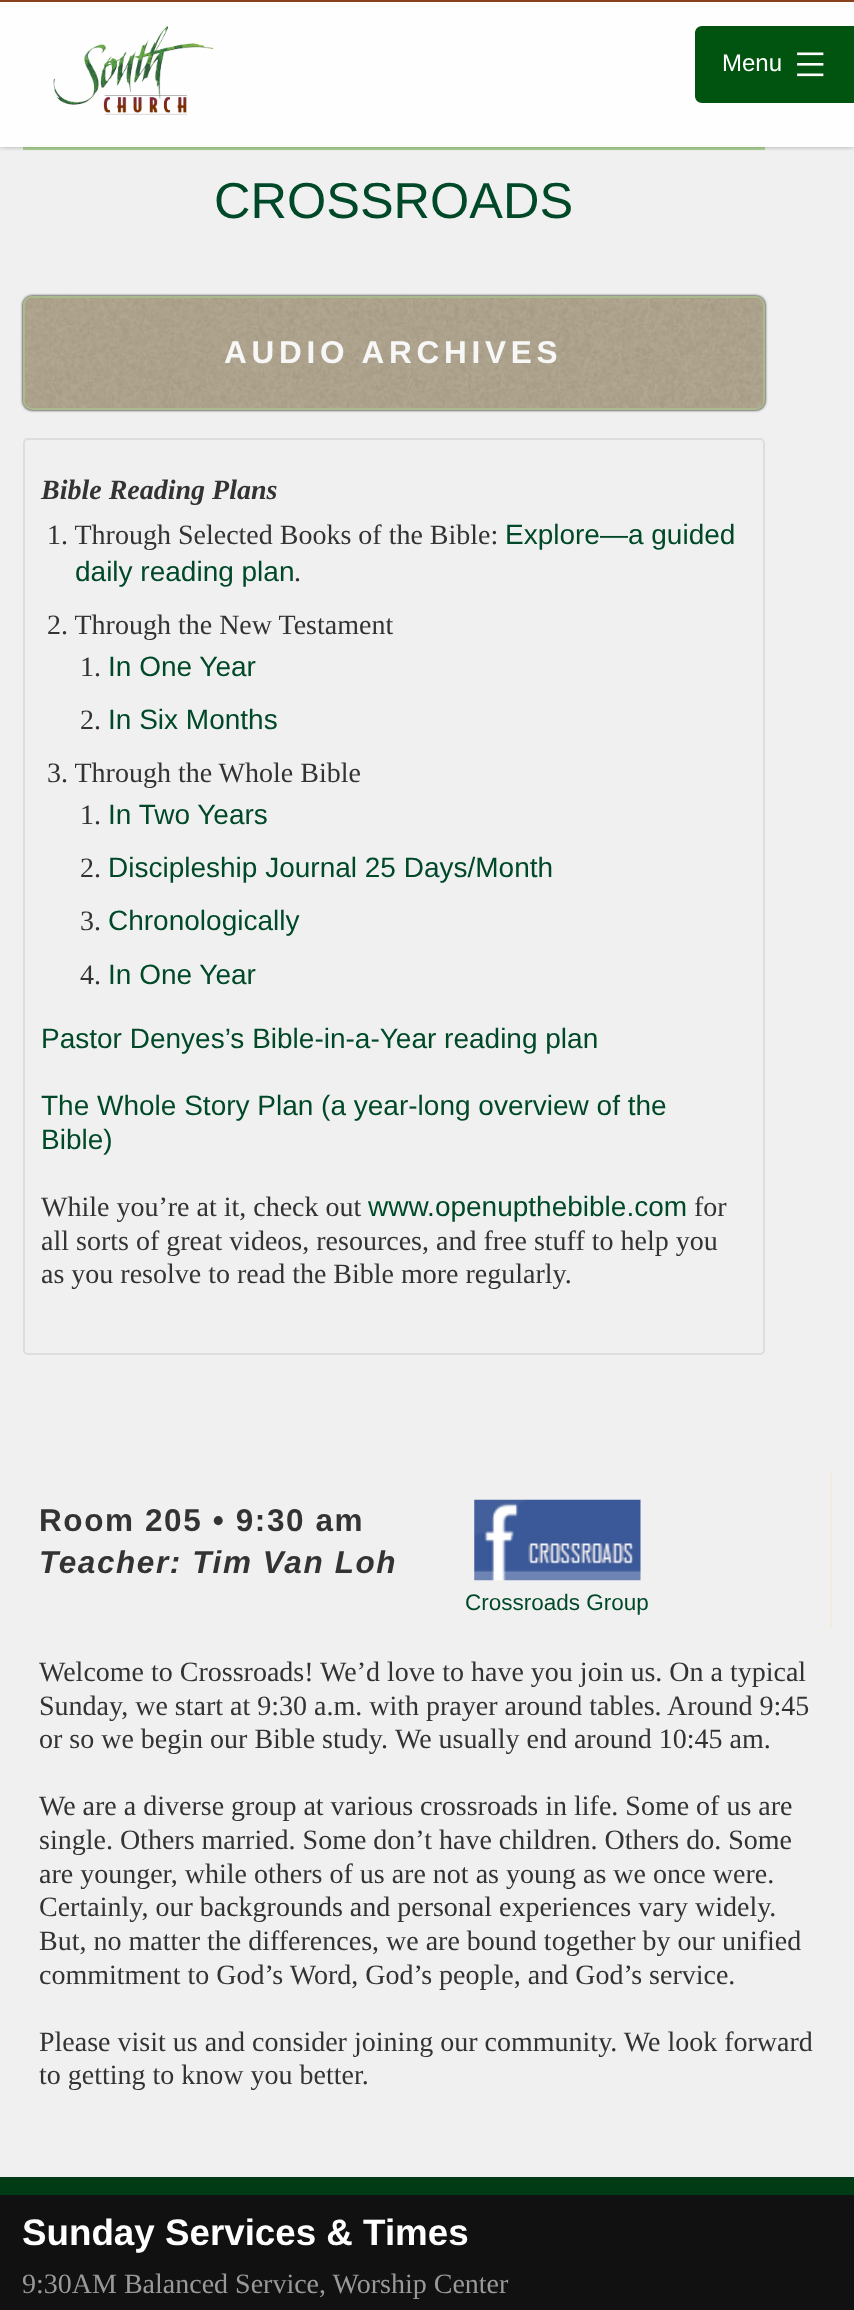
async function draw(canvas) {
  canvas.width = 854
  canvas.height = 2310
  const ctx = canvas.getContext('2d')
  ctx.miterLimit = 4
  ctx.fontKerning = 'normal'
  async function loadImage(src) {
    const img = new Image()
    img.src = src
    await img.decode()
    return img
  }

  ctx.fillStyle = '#f0f0f0'
  ctx.fillRect(0, 0, 854, 2310)
  ctx.fillStyle = '#fefefe'
  ctx.fillRect(0, 2, 854, 145)
  ctx.fillStyle = '#abd293'
  ctx.fillRect(23, 147, 742, 3)
  ctx.fillStyle = '#fbfdfa'
  ctx.fillRect(23, 145, 742, 2)
  ctx.save()
  ctx.beginPath()
  ctx.rect(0, 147, 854, 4)
  ctx.clip()
  ctx.fillStyle = '#333'
  ctx.filter = 'blur(3.5px)'
  ctx.beginPath()
  ctx.rect(0, -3, 854, 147)
  ctx.fill()
  ctx.filter = 'none'
  ctx.restore()
  ctx.fillStyle = '#88431a'
  ctx.fillRect(0, 0, 854, 2)
  ctx.drawImage(await loadImage('image0.png'), 53, 26, 160, 89)
  ctx.fillStyle = '#00540f'
  ctx.beginPath()
  ctx.moveTo(702, 26)
  ctx.lineTo(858, 26)
  ctx.lineTo(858, 103)
  ctx.lineTo(702, 103)
  ctx.bezierCurveTo(698, 103, 695, 100, 695, 96)
  ctx.lineTo(695, 33)
  ctx.bezierCurveTo(695, 29, 698, 26, 702, 26)
  ctx.closePath()
  ctx.fill()
  ctx.font = '24px Liberation Sans'
  ctx.fillStyle = '#fff'
  ctx.fillText('Menu', 722, 71)
  ctx.drawImage(await loadImage('image1.png'), 797, 52, 27, 25)
  ctx.font = '50.5px Liberation Sans'
  ctx.fillStyle = '#004928'
  ctx.fillText('CROSSROADS', 214, 218)
  ctx.fillStyle = '#000'
  ctx.filter = 'blur(1.5px)'
  ctx.beginPath()
  ctx.roundRect(23, 296, 742, 114, 9)
  ctx.fill()
  ctx.filter = 'none'
  ctx.drawImage(await loadImage('image2.png'), 22, 295, 743, 115)
  ctx.beginPath()
  ctx.roundRect(24, 297, 740, 112, 8)
  ctx.strokeStyle = '#aaba8d'
  ctx.lineWidth = 2
  ctx.stroke()
  ctx.letterSpacing = '4.75px'
  ctx.font = 'bold 31.5px Liberation Sans'
  ctx.fillStyle = '#f7f7f7'
  ctx.fillText('AUDIO ARCHIVES', 224, 363)
  ctx.beginPath()
  ctx.roundRect(24, 439, 740, 915, 4)
  ctx.strokeStyle = '#ddd'
  ctx.stroke()
  ctx.letterSpacing = '0px'
  ctx.font = 'italic bold 28px Liberation Serif'
  ctx.fillStyle = '#333'
  ctx.fillText('Bible Reading Plans', 41, 499)
  ctx.font = '28px Liberation Serif'
  ctx.fillText('1. Through Selected Books of the Bible:', 47, 544)
  ctx.font = '28px Liberation Sans'
  ctx.fillStyle = '#004928'
  ctx.fillText('Explore—a guided', 505, 544)
  ctx.fillText('daily reading plan', 75, 581)
  ctx.font = '28px Liberation Serif'
  ctx.fillStyle = '#333'
  ctx.fillText('.', 294, 581)
  ctx.fillText('2. Through the New Testament', 47, 634)
  ctx.fillText('1.', 80, 676)
  ctx.font = '28px Liberation Sans'
  ctx.fillStyle = '#004928'
  ctx.fillText('In One Year', 108, 676)
  ctx.font = '28px Liberation Serif'
  ctx.fillStyle = '#333'
  ctx.fillText('2.', 80, 729)
  ctx.font = '28px Liberation Sans'
  ctx.fillStyle = '#004928'
  ctx.fillText('In Six Months', 108, 729)
  ctx.font = '28px Liberation Serif'
  ctx.fillStyle = '#333'
  ctx.fillText('3. Through the Whole Bible', 47, 782)
  ctx.fillText('1.', 80, 824)
  ctx.font = '28px Liberation Sans'
  ctx.fillStyle = '#004928'
  ctx.fillText('In Two Years', 108, 824)
  ctx.font = '28px Liberation Serif'
  ctx.fillStyle = '#333'
  ctx.fillText('2.', 80, 877)
  ctx.font = '28px Liberation Sans'
  ctx.fillStyle = '#004928'
  ctx.fillText('Discipleship Journal 25 Days/Month', 108, 877)
  ctx.font = '28px Liberation Serif'
  ctx.fillStyle = '#333'
  ctx.fillText('3.', 80, 930)
  ctx.font = '28px Liberation Sans'
  ctx.fillStyle = '#004928'
  ctx.fillText('Chronologically', 108, 930)
  ctx.font = '28px Liberation Serif'
  ctx.fillStyle = '#333'
  ctx.fillText('4.', 80, 984)
  ctx.font = '28px Liberation Sans'
  ctx.fillStyle = '#004928'
  ctx.fillText('In One Year', 108, 984)
  ctx.fillText('Pastor Denyes’s Bible-in-a-Year reading plan', 41, 1048)
  ctx.fillText('The Whole Story Plan (a year-long overview of the', 41, 1115)
  ctx.fillText('Bible)', 41, 1149)
  ctx.font = '28px Liberation Serif'
  ctx.fillStyle = '#333'
  ctx.fillText('While you’re at it, check out', 41, 1216)
  ctx.font = '28px Liberation Sans'
  ctx.fillStyle = '#004928'
  ctx.fillText('www.openupthebible.com', 368, 1216)
  ctx.font = '28px Liberation Serif'
  ctx.fillStyle = '#333'
  ctx.fillText('for', 694, 1216)
  ctx.fillText('all sorts of great videos, resources, and free stuff to help you', 41, 1250)
  ctx.fillText('as you resolve to read the Bible more regularly.', 41, 1283)
  ctx.fillStyle = '#f1ecde'
  ctx.fillRect(830, 1472, 2, 156)
  ctx.letterSpacing = '1.6px'
  ctx.font = 'bold 31.5px Liberation Sans'
  ctx.fillStyle = '#333'
  ctx.fillText('Room 205 • 9:30 am', 39, 1531)
  ctx.font = 'italic bold 31.5px Liberation Sans'
  ctx.fillText('Teacher: Tim Van Loh', 39, 1573)
  ctx.drawImage(await loadImage('image3.png'), 474, 1499, 167, 82)
  ctx.letterSpacing = '0px'
  ctx.font = '22.5px Liberation Sans'
  ctx.fillStyle = '#004928'
  ctx.fillText('Crossroads Group', 465, 1610)
  ctx.font = '28px Liberation Serif'
  ctx.fillStyle = '#333'
  ctx.fillText('Welcome to Crossroads! We’d love to have you join us. On a typical', 39, 1681)
  ctx.fillText('Sunday, we start at 9:30 a.m. with prayer around tables. Around 9:45', 39, 1715)
  ctx.fillText('or so we begin our Bible study.', 39, 1748)
  ctx.fillText('We usually end around 10:45 am.', 395, 1748)
  ctx.fillText('We are a diverse group at various crossroads in life. Some of us are', 39, 1815)
  ctx.fillText('single. Others married. Some don’t have children. Others do. Some', 39, 1849)
  ctx.fillText('are younger, while others of us are not as young as we once were.', 39, 1883)
  ctx.fillText('Certainly, our backgrounds and personal experiences vary widely.', 39, 1916)
  ctx.fillText('But, no matter the differences, we are bound together by our unified', 39, 1950)
  ctx.fillText('commitment to God’s Word, God’s people, and God’s service.', 39, 1984)
  ctx.fillText('Please visit us and consider joining our community. We look forward', 39, 2051)
  ctx.fillText('to getting to know you better.', 39, 2084)
  ctx.fillStyle = '#003b15'
  ctx.fillRect(0, 2177, 854, 18)
  ctx.fillStyle = '#111'
  ctx.fillRect(0, 2195, 854, 115)
  ctx.font = 'bold 36.75px Liberation Sans'
  ctx.fillStyle = '#fff'
  ctx.fillText('Sunday Services & Times', 22, 2245)
  ctx.font = '28px Liberation Serif'
  ctx.fillStyle = '#999'
  ctx.fillText('9:30AM Balanced Service, Worship Center', 22, 2293)
}

draw(document.querySelector('canvas'))
